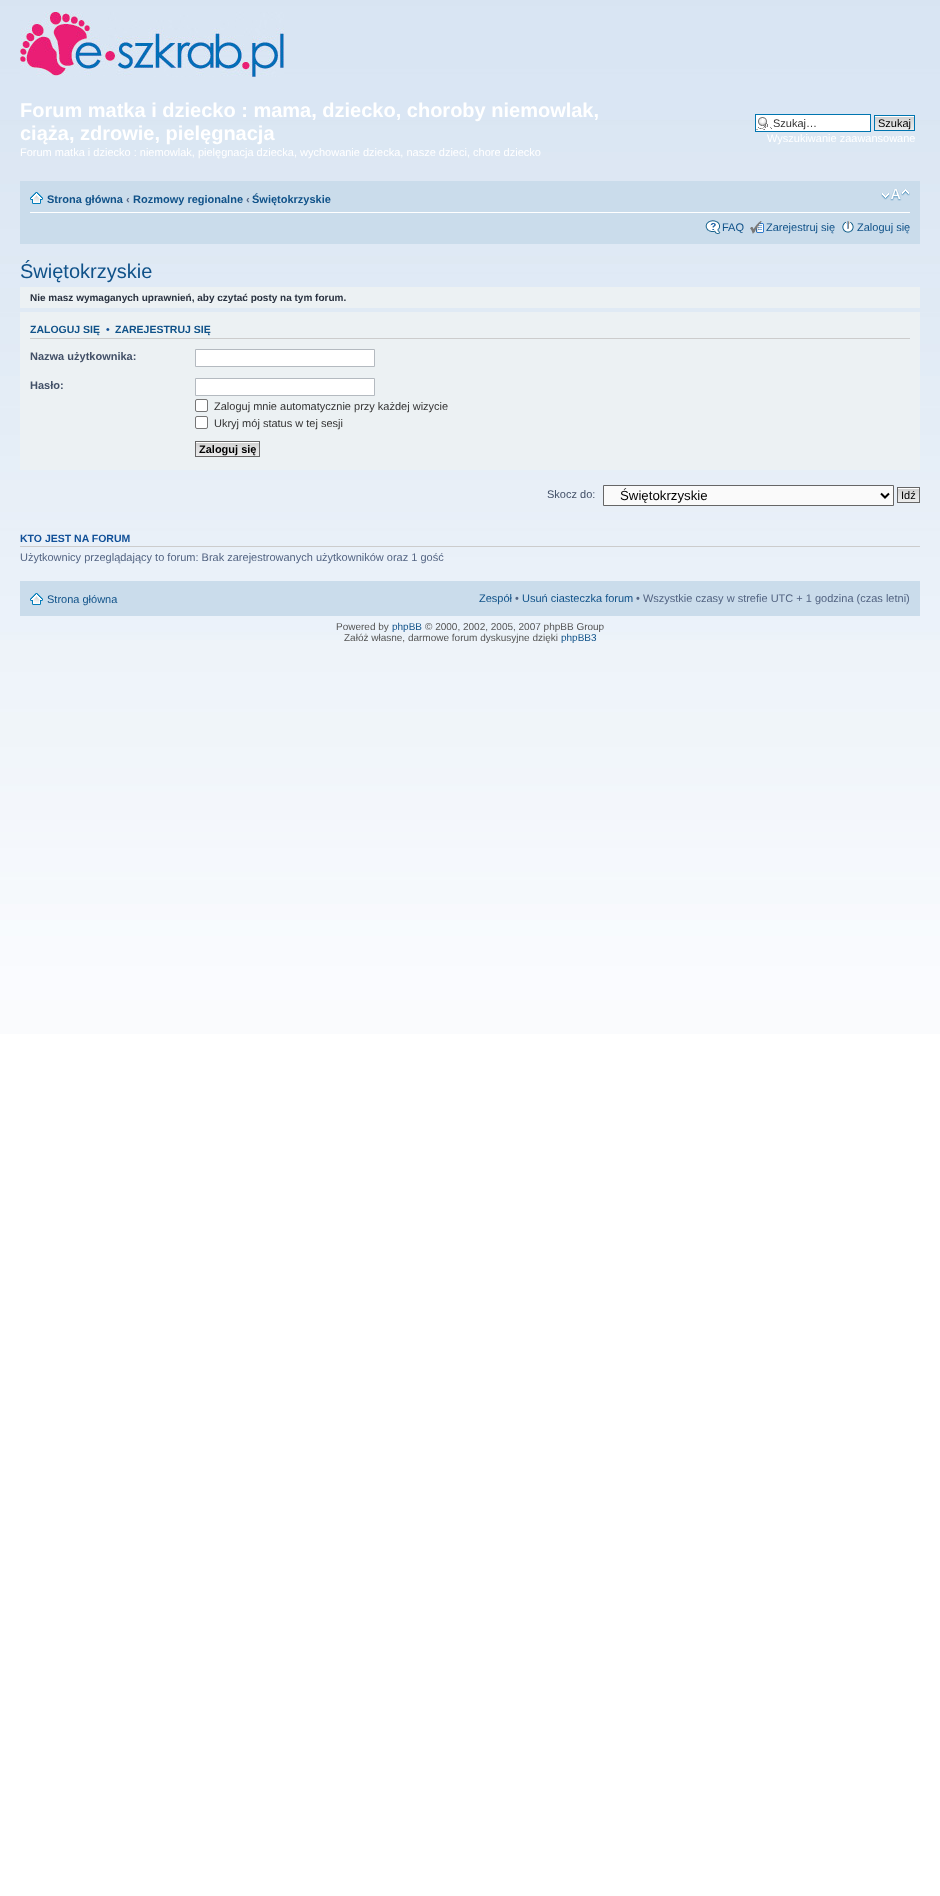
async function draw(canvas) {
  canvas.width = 940
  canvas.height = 1896
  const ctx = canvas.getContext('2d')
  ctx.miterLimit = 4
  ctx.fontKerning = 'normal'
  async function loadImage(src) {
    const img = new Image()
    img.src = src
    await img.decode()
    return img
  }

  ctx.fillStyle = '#fff'
  ctx.fillRect(0, 0, 940, 1896)
  ctx.drawImage(await loadImage('image0.png'), 0, 0, 940, 1034)
  ctx.drawImage(await loadImage('image1.png'), 20, 12, 264, 65)
  ctx.font = 'bold 20px Liberation Sans'
  ctx.fillText('Forum matka i dziecko : mama, dziecko, choroby niemowlak,', 20, 117)
  ctx.fillText('ciąża, zdrowie, pielęgnacja', 20, 140)
  ctx.font = '11px Liberation Sans'
  ctx.fillText('Forum matka i dziecko : niemowlak, pielęgnacja dziecka, wychowanie dziecka, nasze dzieci, chore dziecko', 20, 156)
  ctx.fillRect(756, 115, 114, 16)
  ctx.drawImage(await loadImage('image2.png'), 756, 117, 16, 13)
  ctx.strokeStyle = '#0075b0'
  ctx.strokeRect(755.5, 114.5, 115, 17)
  ctx.fillStyle = '#333'
  ctx.fillText('Szukaj…', 773, 127)
  ctx.drawImage(await loadImage('image3.png'), 875, 116, 39, 14)
  ctx.strokeRect(874.5, 115.5, 40, 15)
  ctx.fillStyle = '#000'
  ctx.fillText('Szukaj', 878, 127)
  ctx.fillStyle = '#fff'
  ctx.fillText('Wyszukiwanie zaawansowane', 767, 142)
  ctx.fillStyle = '#cadceb'
  ctx.fillRect(20, 181, 900, 63)
  ctx.fillStyle = '#fff'
  ctx.fillRect(30, 212, 880, 1)
  ctx.drawImage(await loadImage('image4.png'), 30, 192, 13, 12)
  ctx.font = 'bold 11px Liberation Sans'
  ctx.fillStyle = '#105289'
  ctx.fillText('Strona główna', 47, 203)
  ctx.fillStyle = '#536482'
  ctx.fillText('‹', 126, 203)
  ctx.fillStyle = '#105289'
  ctx.fillText('Rozmowy regionalne', 133, 203)
  ctx.fillStyle = '#536482'
  ctx.fillText('‹', 246, 203)
  ctx.fillStyle = '#105289'
  ctx.fillText('Świętokrzyskie', 252, 203)
  ctx.drawImage(await loadImage('image5.png'), 881, 189, 29, 12)
  ctx.drawImage(await loadImage('image6.png'), 705, 220, 16, 14)
  ctx.font = '11px Liberation Sans'
  ctx.fillText('FAQ', 722, 231)
  ctx.drawImage(await loadImage('image7.png'), 750, 221, 14, 13)
  ctx.fillText('Zarejestruj się', 766, 231)
  ctx.drawImage(await loadImage('image8.png'), 842, 221, 12, 12)
  ctx.fillText('Zaloguj się', 857, 231)
  ctx.font = '20px Liberation Sans'
  ctx.fillText('Świętokrzyskie', 20, 278)
  ctx.fillStyle = '#ecf1f3'
  ctx.fillRect(20, 287, 900, 21)
  ctx.font = 'bold 10px Liberation Sans'
  ctx.fillStyle = '#28313f'
  ctx.fillText('Nie masz wymaganych uprawnień, aby czytać posty na tym forum.', 30, 301)
  ctx.fillStyle = '#ecf1f3'
  ctx.fillRect(20, 312, 900, 158)
  ctx.fillStyle = '#ccc'
  ctx.fillRect(30, 338, 880, 1)
  ctx.font = 'bold 10.5px Liberation Sans'
  ctx.fillStyle = '#105289'
  ctx.fillText('ZALOGUJ SIĘ', 30, 333)
  ctx.fillStyle = '#115098'
  ctx.fillText('•', 106, 333)
  ctx.fillStyle = '#105289'
  ctx.fillText('ZAREJESTRUJ SIĘ', 115, 333)
  ctx.font = 'bold 11px Liberation Sans'
  ctx.fillStyle = '#425067'
  ctx.fillText('Nazwa użytkownika:', 30, 360)
  ctx.fillStyle = '#fff'
  ctx.beginPath()
  ctx.rect(195.5, 349.5, 179, 17)
  ctx.fill()
  ctx.strokeStyle = '#b4bac0'
  ctx.stroke()
  ctx.fillStyle = '#425067'
  ctx.fillText('Hasło:', 30, 389)
  ctx.fillStyle = '#fff'
  ctx.beginPath()
  ctx.rect(195.5, 378.5, 179, 17)
  ctx.fill()
  ctx.stroke()
  ctx.beginPath()
  ctx.roundRect(195.5, 399.5, 12, 12, 1.5)
  ctx.fill()
  ctx.strokeStyle = '#767676'
  ctx.stroke()
  ctx.font = '11px Liberation Sans'
  ctx.fillStyle = '#333'
  ctx.fillText('Zaloguj mnie automatycznie przy każdej wizycie', 214, 410)
  ctx.fillStyle = '#fff'
  ctx.beginPath()
  ctx.roundRect(195.5, 416.5, 12, 12, 1.5)
  ctx.fill()
  ctx.stroke()
  ctx.fillStyle = '#333'
  ctx.fillText('Ukryj mój status w tej sesji', 214, 427)
  ctx.drawImage(await loadImage('image9.png'), 196, 442, 63, 14)
  ctx.strokeStyle = '#666'
  ctx.strokeRect(195.5, 441.5, 64, 15)
  ctx.font = 'bold 11px Liberation Sans'
  ctx.fillStyle = '#000'
  ctx.fillText('Zaloguj się', 199, 453)
  ctx.font = '11px Liberation Sans'
  ctx.fillStyle = '#425067'
  ctx.fillText('Skocz do:', 547, 498)
  ctx.fillStyle = '#fafafa'
  ctx.beginPath()
  ctx.rect(603.5, 485.5, 290, 20)
  ctx.fill()
  ctx.stroke()
  ctx.beginPath()
  ctx.moveTo(881, 493.5)
  ctx.lineTo(885, 497.5)
  ctx.lineTo(889, 493.5)
  ctx.strokeStyle = '#000'
  ctx.lineWidth = 2
  ctx.stroke()
  ctx.font = '13.25px Liberation Sans'
  ctx.fillStyle = '#000'
  ctx.fillText('Świętokrzyskie', 620, 500)
  ctx.drawImage(await loadImage('image10.png'), 898, 488, 21, 14)
  ctx.strokeStyle = '#666'
  ctx.lineWidth = 1
  ctx.strokeRect(897.5, 487.5, 22, 15)
  ctx.font = '11px Liberation Sans'
  ctx.fillText('Idź', 901, 499)
  ctx.fillStyle = '#ccc'
  ctx.fillRect(20, 546, 900, 1)
  ctx.font = 'bold 10.5px Liberation Sans'
  ctx.fillStyle = '#115098'
  ctx.fillText('KTO JEST NA FORUM', 20, 542)
  ctx.font = '11px Liberation Sans'
  ctx.fillStyle = '#536482'
  ctx.fillText('Użytkownicy przeglądający to forum: Brak zarejestrowanych użytkowników oraz 1 gość', 20, 561)
  ctx.fillStyle = '#cadceb'
  ctx.fillRect(20, 581, 900, 35)
  ctx.drawImage(await loadImage('image4.png'), 30, 593, 13, 12)
  ctx.fillStyle = '#105289'
  ctx.fillText('Strona główna', 47, 603)
  ctx.fillText('Zespół', 479, 602)
  ctx.fillStyle = '#536482'
  ctx.fillText('•', 515, 602)
  ctx.fillStyle = '#105289'
  ctx.fillText('Usuń ciasteczka forum', 522, 602)
  ctx.fillStyle = '#536482'
  ctx.fillText('• Wszystkie czasy w strefie UTC + 1 godzina (czas letni)', 636, 602)
  ctx.font = '10px Liberation Sans'
  ctx.fillStyle = '#555'
  ctx.fillText('Powered by', 336, 630)
  ctx.fillStyle = '#105289'
  ctx.fillText('phpBB', 392, 630)
  ctx.fillStyle = '#555'
  ctx.fillText('© 2000, 2002, 2005, 2007 phpBB Group', 425, 630)
  ctx.fillText('Załóż własne, darmowe forum dyskusyjne dzięki', 344, 641)
  ctx.fillStyle = '#105289'
  ctx.fillText('phpBB3', 561, 641)
}

draw(document.querySelector('canvas'))
